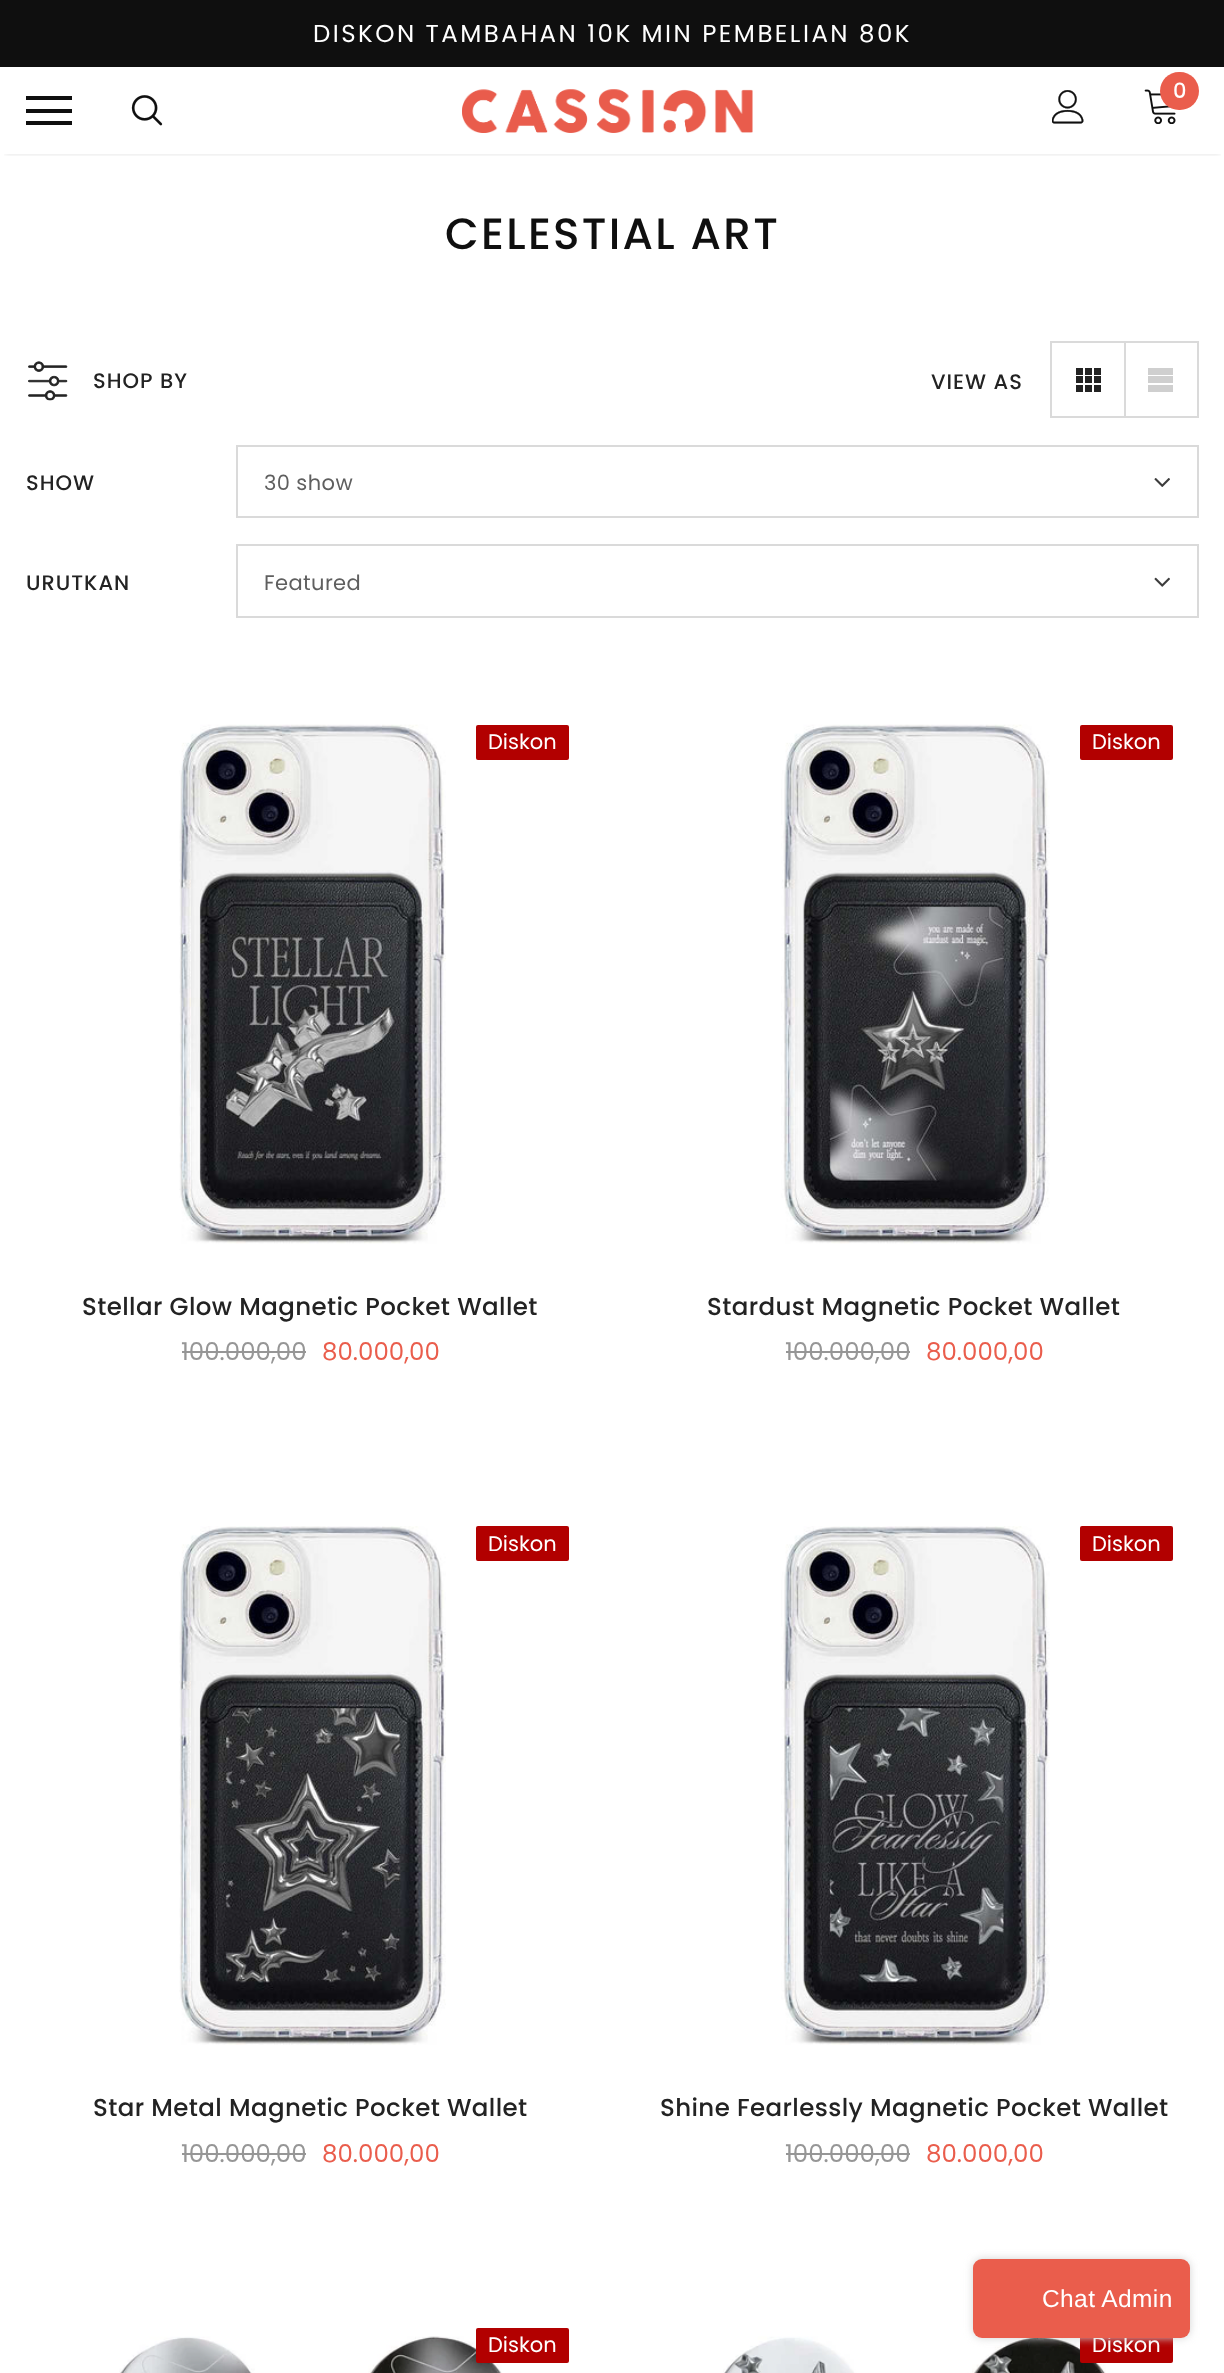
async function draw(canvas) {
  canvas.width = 1224
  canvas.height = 2373
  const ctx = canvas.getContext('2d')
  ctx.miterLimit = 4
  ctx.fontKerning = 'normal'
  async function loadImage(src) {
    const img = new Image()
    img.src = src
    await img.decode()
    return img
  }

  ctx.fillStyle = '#fff'
  ctx.fillRect(0, 0, 1224, 2373)
  ctx.fillStyle = '#0f0f0f'
  ctx.fillRect(0, 0, 1224, 67)
  ctx.letterSpacing = '2.45px'
  ctx.font = '24.5px Poppins'
  ctx.fillStyle = '#fff'
  ctx.fillText('DISKON TAMBAHAN 10K MIN PEMBELIAN 80K', 313, 42)
  ctx.save()
  ctx.beginPath()
  ctx.rect(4, 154, 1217, 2)
  ctx.clip()
  ctx.fillStyle = '#0000001f'
  ctx.filter = 'blur(2.5px)'
  ctx.beginPath()
  ctx.rect(5, 77, 1215, 77)
  ctx.fill()
  ctx.filter = 'none'
  ctx.restore()
  ctx.fillStyle = '#0f0f0f'
  ctx.fillRect(26, 109, 46, 4)
  ctx.fillRect(26, 96, 46, 4)
  ctx.fillRect(26, 121, 46, 4)
  ctx.drawImage(await loadImage('image0.png'), 131, 95, 32, 31)
  ctx.drawImage(await loadImage('image1.png'), 462, 89, 291, 44)
  ctx.drawImage(await loadImage('image2.png'), 1052, 90, 32, 34)
  ctx.drawImage(await loadImage('image3.png'), 1144, 89, 32, 35)
  ctx.fillStyle = '#ea5d4c'
  ctx.beginPath()
  ctx.roundRect(1160, 72, 39, 38, 19)
  ctx.fill()
  ctx.letterSpacing = '0.4px'
  ctx.font = '500 21px Poppins'
  ctx.fillStyle = '#fff'
  ctx.fillText('0', 1173, 98)
  ctx.letterSpacing = '2.25px'
  ctx.font = '500 43.75px Poppins'
  ctx.fillStyle = '#0f0f0f'
  ctx.fillText('CELESTIAL ART', 445, 249)
  ctx.drawImage(await loadImage('image4.png'), 28, 361, 40, 40)
  ctx.letterSpacing = '1px'
  ctx.font = '500 21px Poppins'
  ctx.fillStyle = '#232323'
  ctx.fillText('SHOP BY', 93, 388)
  ctx.fillText('VIEW AS', 931, 389)
  ctx.strokeStyle = '#dadada'
  ctx.lineWidth = 2
  ctx.strokeRect(1051, 342, 147, 75)
  ctx.fillStyle = '#dadada'
  ctx.fillRect(1124, 343, 2, 74)
  ctx.fillStyle = '#232323'
  ctx.fillRect(1085, 368, 7, 7)
  ctx.fillRect(1076, 368, 7, 7)
  ctx.fillRect(1094, 368, 7, 7)
  ctx.fillRect(1085, 376, 7, 7)
  ctx.fillRect(1076, 376, 7, 7)
  ctx.fillRect(1094, 376, 7, 7)
  ctx.fillRect(1085, 385, 7, 7)
  ctx.fillRect(1076, 385, 7, 7)
  ctx.fillRect(1094, 385, 7, 7)
  ctx.fillStyle = '#cfcfcf'
  ctx.fillRect(1148, 368, 25, 7)
  ctx.fillRect(1148, 376, 25, 7)
  ctx.fillRect(1148, 385, 25, 7)
  ctx.fillStyle = '#232323'
  ctx.fillText('SHOW', 26, 490)
  ctx.strokeRect(237, 446, 961, 71)
  ctx.letterSpacing = '0.4px'
  ctx.font = '21px Poppins'
  ctx.fillStyle = '#5f5f5f'
  ctx.fillText('30 show', 264, 490)
  ctx.drawImage(await loadImage('image5.png'), 1154, 478, 16, 9)
  ctx.letterSpacing = '1px'
  ctx.font = '500 21px Poppins'
  ctx.fillStyle = '#232323'
  ctx.fillText('URUTKAN', 26, 590)
  ctx.strokeRect(237, 545, 961, 72)
  ctx.letterSpacing = '0.4px'
  ctx.font = '21px Poppins'
  ctx.fillStyle = '#5f5f5f'
  ctx.fillText('Featured', 264, 590)
  ctx.drawImage(await loadImage('image6.png'), 1154, 577, 16, 10)
  ctx.drawImage(await loadImage('image7.png'), 179, 724, 267, 520)
  ctx.fillStyle = '#b20000'
  ctx.beginPath()
  ctx.roundRect(476, 725, 93, 35, 2)
  ctx.fill()
  ctx.letterSpacing = '0px'
  ctx.fillStyle = '#fff'
  ctx.fillText('Diskon', 488, 749)
  ctx.letterSpacing = '0.4px'
  ctx.font = '500 24.5px Poppins'
  ctx.fillStyle = '#232323'
  ctx.fillText('Stellar Glow Magnetic Pocket Wallet', 82, 1315)
  ctx.letterSpacing = '0px'
  ctx.font = '24.5px Poppins'
  ctx.fillStyle = '#969696'
  ctx.fillText('100.000,00', 181, 1360)
  ctx.fillRect(182, 1351, 124, 2)
  ctx.fillStyle = '#ea5d4c'
  ctx.fillText('80.000,00', 322, 1360)
  ctx.drawImage(await loadImage('image8.png'), 781, 724, 269, 520)
  ctx.fillStyle = '#b20000'
  ctx.beginPath()
  ctx.roundRect(1080, 725, 93, 35, 2)
  ctx.fill()
  ctx.font = '21px Poppins'
  ctx.fillStyle = '#fff'
  ctx.fillText('Diskon', 1092, 749)
  ctx.letterSpacing = '0.4px'
  ctx.font = '500 24.5px Poppins'
  ctx.fillStyle = '#232323'
  ctx.fillText('Stardust Magnetic Pocket Wallet', 707, 1315)
  ctx.letterSpacing = '0px'
  ctx.font = '24.5px Poppins'
  ctx.fillStyle = '#969696'
  ctx.fillText('100.000,00', 785, 1360)
  ctx.fillRect(786, 1351, 124, 2)
  ctx.fillStyle = '#ea5d4c'
  ctx.fillText('80.000,00', 926, 1360)
  ctx.drawImage(await loadImage('image9.png'), 179, 1526, 267, 519)
  ctx.fillStyle = '#b20000'
  ctx.beginPath()
  ctx.roundRect(476, 1526, 93, 35, 2)
  ctx.fill()
  ctx.font = '21px Poppins'
  ctx.fillStyle = '#fff'
  ctx.fillText('Diskon', 488, 1551)
  ctx.letterSpacing = '0.4px'
  ctx.font = '500 24.5px Poppins'
  ctx.fillStyle = '#232323'
  ctx.fillText('Star Metal Magnetic Pocket Wallet', 93, 2116)
  ctx.letterSpacing = '0px'
  ctx.font = '24.5px Poppins'
  ctx.fillStyle = '#969696'
  ctx.fillText('100.000,00', 181, 2162)
  ctx.fillRect(182, 2153, 124, 2)
  ctx.fillStyle = '#ea5d4c'
  ctx.fillText('80.000,00', 322, 2162)
  ctx.drawImage(await loadImage('image10.png'), 781, 1526, 269, 519)
  ctx.fillStyle = '#b20000'
  ctx.beginPath()
  ctx.roundRect(1080, 1526, 93, 35, 2)
  ctx.fill()
  ctx.font = '21px Poppins'
  ctx.fillStyle = '#fff'
  ctx.fillText('Diskon', 1092, 1551)
  ctx.letterSpacing = '0.4px'
  ctx.font = '500 24.5px Poppins'
  ctx.fillStyle = '#232323'
  ctx.fillText('Shine Fearlessly Magnetic Pocket Wallet', 660, 2116)
  ctx.letterSpacing = '0px'
  ctx.font = '24.5px Poppins'
  ctx.fillStyle = '#969696'
  ctx.fillText('100.000,00', 785, 2162)
  ctx.fillRect(786, 2153, 124, 2)
  ctx.fillStyle = '#ea5d4c'
  ctx.fillText('80.000,00', 926, 2162)
  ctx.drawImage(await loadImage('image11.png'), 119, 2336, 383, 37)
  ctx.fillStyle = '#b20000'
  ctx.beginPath()
  ctx.roundRect(476, 2328, 93, 35, 2)
  ctx.fill()
  ctx.font = '21px Poppins'
  ctx.fillStyle = '#fff'
  ctx.fillText('Diskon', 488, 2352)
  ctx.drawImage(await loadImage('image12.png'), 723, 2336, 383, 37)
  ctx.fillStyle = '#b20000'
  ctx.beginPath()
  ctx.roundRect(1080, 2328, 93, 35, 2)
  ctx.fill()
  ctx.fillStyle = '#fff'
  ctx.fillText('Diskon', 1092, 2352)
  ctx.fillStyle = '#d3d3d3'
  ctx.filter = 'blur(4.5px)'
  ctx.beginPath()
  ctx.roundRect(973, 2259, 217, 79, 9)
  ctx.fill()
  ctx.filter = 'none'
  ctx.fillStyle = '#ea5d4c'
  ctx.beginPath()
  ctx.roundRect(973, 2259, 217, 79, 9)
  ctx.fill()
  ctx.letterSpacing = '0.4px'
  ctx.font = '24.5px Liberation Sans'
  ctx.fillStyle = '#fff'
  ctx.fillText('Chat Admin', 1042, 2307)
}

draw(document.querySelector('canvas'))
